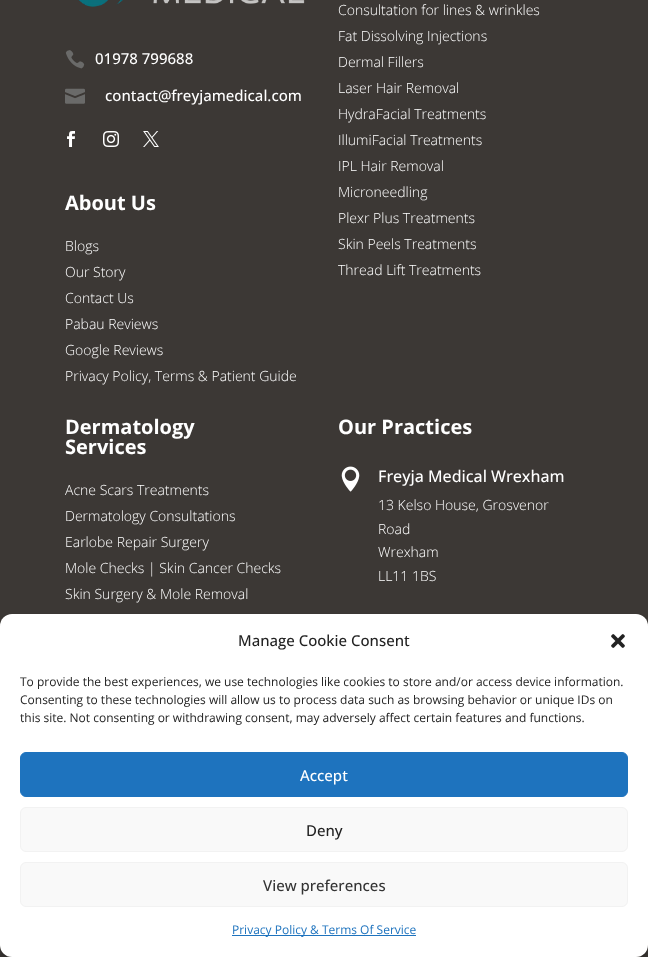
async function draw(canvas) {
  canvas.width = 648
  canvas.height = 957
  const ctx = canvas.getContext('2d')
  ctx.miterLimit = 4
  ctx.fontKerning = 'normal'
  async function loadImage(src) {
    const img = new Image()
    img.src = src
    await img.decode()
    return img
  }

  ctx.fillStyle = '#3c3835'
  ctx.fillRect(0, 0, 648, 957)
  ctx.drawImage(await loadImage('image0.png'), 78, 0, 227, 7)
  ctx.drawImage(await loadImage('image1.png'), 65, 50, 20, 19)
  ctx.font = '500 15px Open Sans'
  ctx.fillStyle = '#fff'
  ctx.fillText('01978 799688', 95, 64)
  ctx.drawImage(await loadImage('image2.png'), 65, 88, 20, 16)
  ctx.fillText('contact@freyjamedical.com', 105, 101)
  ctx.drawImage(await loadImage('image3.png'), 67, 131, 8, 16)
  ctx.drawImage(await loadImage('image4.png'), 103, 131, 16, 16)
  ctx.drawImage(await loadImage('image5.png'), 143, 131, 16, 16)
  ctx.font = 'bold 20px Open Sans'
  ctx.fillText('About Us', 65, 210)
  ctx.font = '300 14px Open Sans'
  ctx.fillText('Blogs', 65, 251)
  ctx.fillText('Our Story', 65, 277)
  ctx.fillText('Contact Us', 65, 303)
  ctx.fillText('Pabau Reviews', 65, 329)
  ctx.fillText('Google Reviews', 65, 355)
  ctx.fillText('Privacy Policy, Terms & Patient Guide', 65, 381)
  ctx.fillText('Consultation for lines & wrinkles', 338, 15)
  ctx.fillText('Fat Dissolving Injections', 338, 41)
  ctx.fillText('Dermal Fillers', 338, 67)
  ctx.fillText('Laser Hair Removal', 338, 93)
  ctx.fillText('HydraFacial Treatments', 338, 119)
  ctx.fillText('IllumiFacial Treatments', 338, 145)
  ctx.fillText('IPL Hair Removal', 338, 171)
  ctx.fillText('Microneedling', 338, 197)
  ctx.fillText('Plexr Plus Treatments', 338, 223)
  ctx.fillText('Skin Peels Treatments', 338, 249)
  ctx.fillText('Thread Lift Treatments', 338, 275)
  ctx.font = 'bold 20px Open Sans'
  ctx.fillText('Dermatology', 65, 434)
  ctx.fillText('Services', 65, 454)
  ctx.font = '300 14px Open Sans'
  ctx.fillText('Acne Scars Treatments', 65, 495)
  ctx.fillText('Dermatology Consultations', 65, 521)
  ctx.fillText('Earlobe Repair Surgery', 65, 547)
  ctx.fillText('Mole Checks | Skin Cancer Checks', 65, 573)
  ctx.fillText('Skin Surgery & Mole Removal', 65, 599)
  ctx.font = 'bold 20px Open Sans'
  ctx.fillText('Our Practices', 338, 434)
  ctx.drawImage(await loadImage('image6.png'), 341, 466, 19, 26)
  ctx.font = '500 16px Open Sans'
  ctx.fillText('Freyja Medical Wrexham', 378, 482)
  ctx.font = '300 14px Open Sans'
  ctx.fillText('13 Kelso House, Grosvenor', 378, 510)
  ctx.fillText('Road', 378, 534)
  ctx.fillText('Wrexham', 378, 557)
  ctx.fillText('LL11 1BS', 378, 581)
  ctx.fillStyle = '#0000003b'
  ctx.filter = 'blur(3px)'
  ctx.beginPath()
  ctx.roundRect(0, 620, 648, 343, 12)
  ctx.fill()
  ctx.filter = 'none'
  ctx.fillStyle = '#fff'
  ctx.beginPath()
  ctx.roundRect(0, 614, 648, 343, 12)
  ctx.fill()
  ctx.font = '500 15px Open Sans'
  ctx.fillStyle = '#222'
  ctx.fillText('Manage Cookie Consent', 238, 646)
  ctx.drawImage(await loadImage('image7.png'), 611, 634, 14, 14)
  ctx.font = '12px Open Sans'
  ctx.fillText('To provide the best experiences, we use technologies like cookies to store and/or access device information.', 20, 686)
  ctx.fillText('Consenting to these technologies will allow us to process data such as browsing behavior or unique IDs on', 20, 704)
  ctx.fillText('this site. Not consenting or withdrawing consent, may adversely affect certain features and functions.', 20, 722)
  ctx.fillStyle = '#1e73be'
  ctx.beginPath()
  ctx.roundRect(20.5, 752.5, 607, 44, 5.5)
  ctx.fill()
  ctx.strokeStyle = '#1e73be'
  ctx.stroke()
  ctx.font = '500 15px Open Sans'
  ctx.fillStyle = '#fff'
  ctx.fillText('Accept', 300, 781)
  ctx.fillStyle = '#f9f9f9'
  ctx.beginPath()
  ctx.roundRect(20.5, 807.5, 607, 44, 5.5)
  ctx.fill()
  ctx.strokeStyle = '#f2f2f2'
  ctx.stroke()
  ctx.fillStyle = '#222'
  ctx.fillText('Deny', 306, 836)
  ctx.fillStyle = '#f9f9f9'
  ctx.beginPath()
  ctx.roundRect(20.5, 862.5, 607, 44, 5.5)
  ctx.fill()
  ctx.stroke()
  ctx.fillStyle = '#333'
  ctx.fillText('View preferences', 263, 891)
  ctx.fillStyle = '#1e73be'
  ctx.fillRect(232, 935, 184, 1)
  ctx.font = '12px Open Sans'
  ctx.fillText('Privacy Policy & Terms Of Service', 232, 934)
}

draw(document.querySelector('canvas'))
